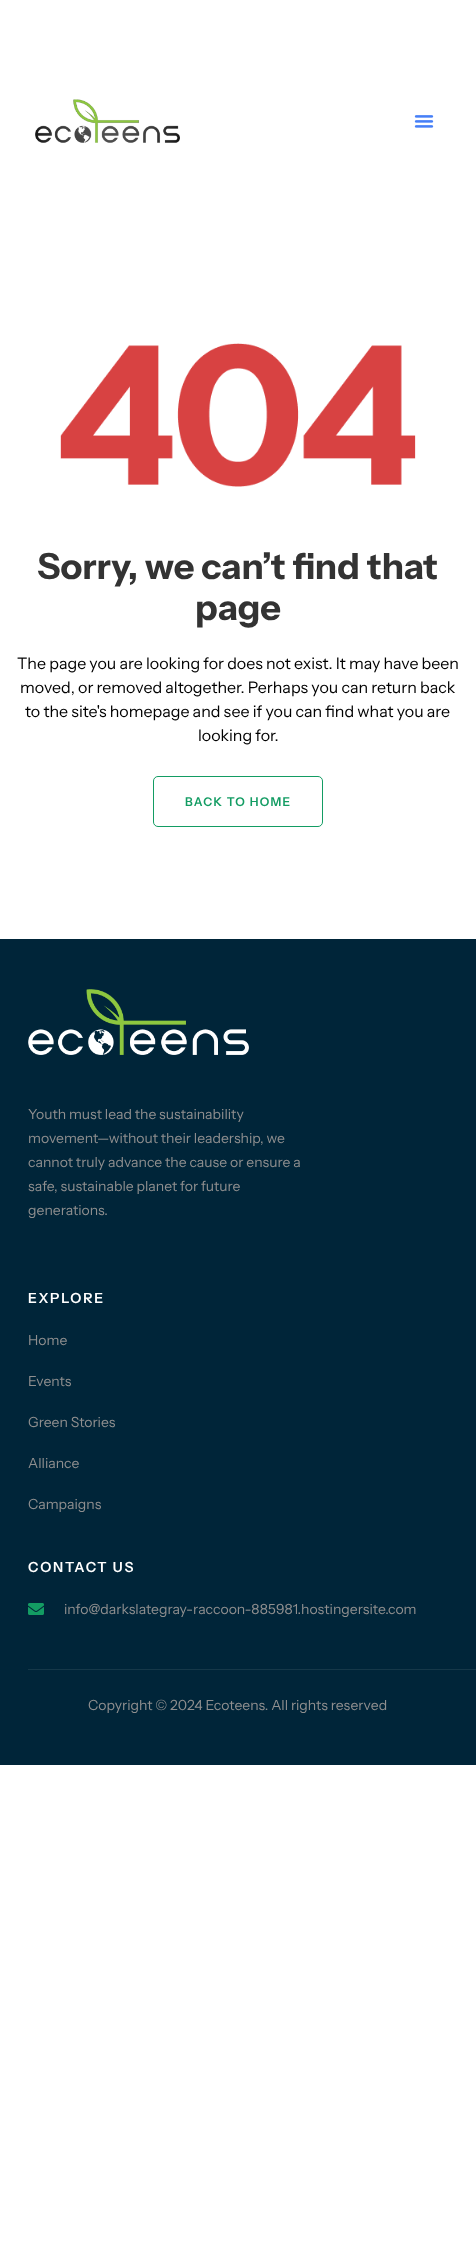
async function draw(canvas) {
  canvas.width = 476
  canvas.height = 2268
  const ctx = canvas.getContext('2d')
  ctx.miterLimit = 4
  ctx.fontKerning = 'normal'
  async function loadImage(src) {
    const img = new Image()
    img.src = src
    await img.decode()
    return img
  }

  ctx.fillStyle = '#fff'
  ctx.fillRect(0, 0, 476, 2268)
  ctx.drawImage(await loadImage('image0.png'), 35, 99, 145, 44)
  ctx.drawImage(await loadImage('image1.png'), 414, 115, 20, 13)
  ctx.drawImage(await loadImage('image2.png'), 60, 343, 356, 144)
  ctx.font = 'bold 36px Instrument Sans'
  ctx.fillStyle = '#333'
  ctx.fillText('Sorry, we can’t find that', 37, 579)
  ctx.fillText('page', 195, 620)
  ctx.font = '16px Instrument Sans'
  ctx.fillStyle = '#000'
  ctx.fillText('The page you are looking for does not exist. It may have been', 17, 669)
  ctx.fillText('moved, or removed altogether. Perhaps you can return back', 20, 693)
  ctx.fillText('to the site\'s homepage and see if you can find what you are', 25, 717)
  ctx.fillText('looking for.', 198, 741)
  ctx.beginPath()
  ctx.roundRect(153.5, 776.5, 169, 50, 4.5)
  ctx.strokeStyle = '#139c63'
  ctx.stroke()
  ctx.letterSpacing = '1.25px'
  ctx.font = '600 12px Instrument Sans'
  ctx.fillStyle = '#139c63'
  ctx.fillText('BACK TO HOME', 185, 806)
  ctx.fillStyle = '#002539'
  ctx.fillRect(0, 939, 476, 826)
  ctx.fillStyle = '#163849'
  ctx.fillRect(28, 1669, 448, 1)
  ctx.drawImage(await loadImage('image3.png'), 28, 989, 221, 66)
  ctx.letterSpacing = '0px'
  ctx.font = '14px Instrument Sans'
  ctx.fillStyle = '#8f8f8f'
  ctx.fillText('Youth must lead the sustainability', 28, 1119)
  ctx.fillText('movement—without their leadership, we', 28, 1143)
  ctx.fillText('cannot truly advance the cause or ensure a', 28, 1167)
  ctx.fillText('safe, sustainable planet for future', 28, 1191)
  ctx.fillText('generations.', 28, 1215)
  ctx.letterSpacing = '1.75px'
  ctx.font = '600 14px Instrument Sans'
  ctx.fillStyle = '#fff'
  ctx.fillText('EXPLORE', 28, 1303)
  ctx.letterSpacing = '0px'
  ctx.font = '14px Instrument Sans'
  ctx.fillStyle = '#8f8f8f'
  ctx.fillText('Home', 28, 1345)
  ctx.fillText('Events', 28, 1386)
  ctx.fillText('Green Stories', 28, 1427)
  ctx.fillText('Alliance', 28, 1468)
  ctx.fillText('Campaigns', 28, 1509)
  ctx.letterSpacing = '1.75px'
  ctx.font = '600 14px Instrument Sans'
  ctx.fillStyle = '#fff'
  ctx.fillText('CONTACT US', 28, 1572)
  ctx.drawImage(await loadImage('image4.png'), 28, 1603, 16, 12)
  ctx.letterSpacing = '0px'
  ctx.font = '14px Instrument Sans'
  ctx.fillStyle = '#8f8f8f'
  ctx.fillText('info@darkslategray-raccoon-885981.hostingersite.com', 64, 1614)
  ctx.fillText('Copyright © 2024 Ecoteens. All rights reserved', 88, 1710)
}

draw(document.querySelector('canvas'))
